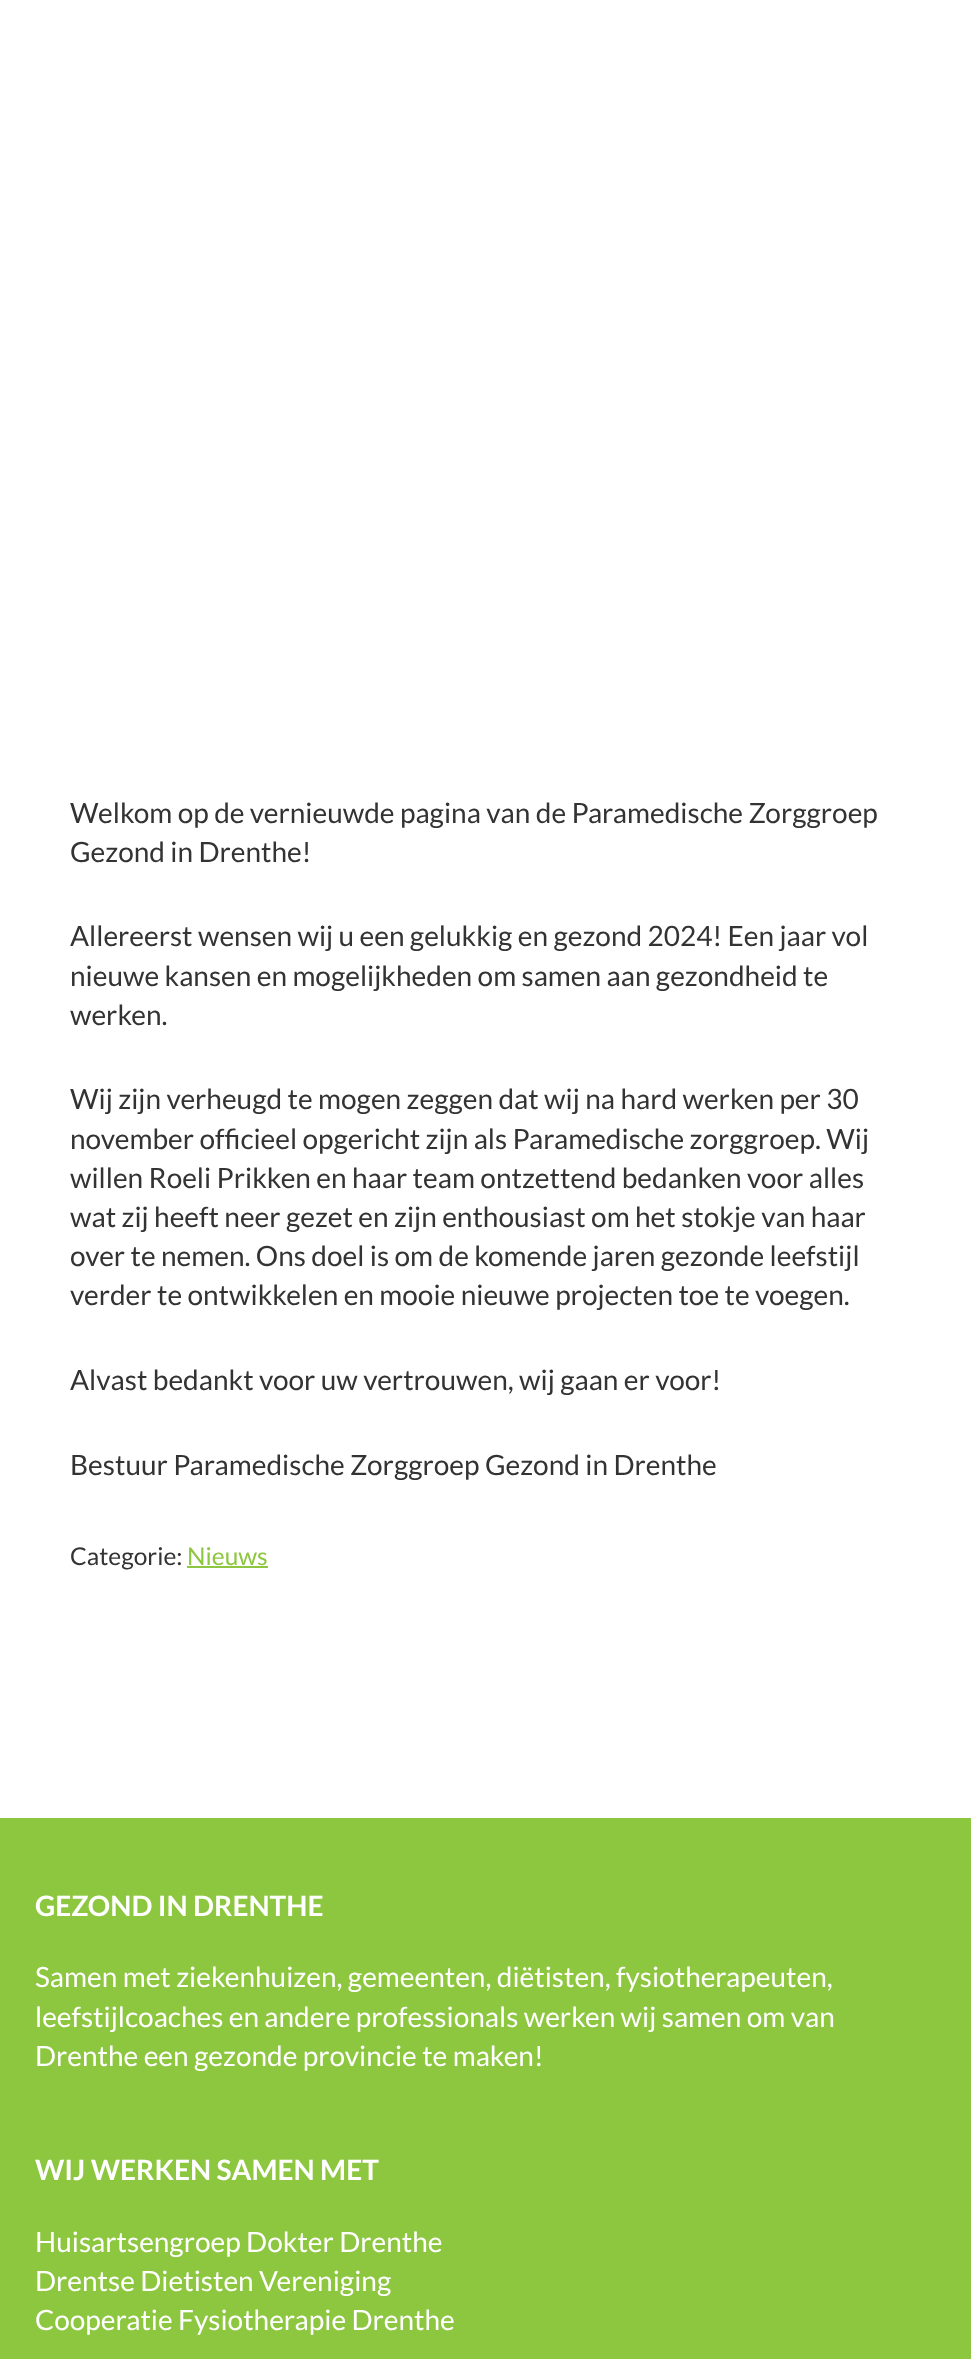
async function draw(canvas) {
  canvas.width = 971
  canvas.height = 2359
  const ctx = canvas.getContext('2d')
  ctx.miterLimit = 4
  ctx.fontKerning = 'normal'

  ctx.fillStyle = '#fff'
  ctx.fillRect(0, 0, 971, 2359)
  ctx.font = '28px Lato'
  ctx.fillStyle = '#333'
  ctx.fillText('Welkom op de vernieuwde pagina van de Paramedische Zorggroep', 70, 823)
  ctx.fillText('Gezond in Drenthe!', 70, 862)
  ctx.fillText('Allereerst wensen wij u een gelukkig en gezond 2024! Een jaar vol', 70, 946)
  ctx.fillText('nieuwe kansen en mogelijkheden om samen aan gezondheid te', 70, 986)
  ctx.fillText('werken.', 70, 1025)
  ctx.fillText('Wij zijn verheugd te mogen zeggen dat wij na hard werken per 30', 70, 1109)
  ctx.fillText('november officieel opgericht zijn als Paramedische zorggroep. Wij', 70, 1149)
  ctx.fillText('willen Roeli Prikken en haar team ontzettend bedanken voor alles', 70, 1188)
  ctx.fillText('wat zij heeft neer gezet en zijn enthousiast om het stokje van haar', 70, 1227)
  ctx.fillText('over te nemen. Ons doel is om de komende jaren gezonde leefstijl', 70, 1266)
  ctx.fillText('verder te ontwikkelen en mooie nieuwe projecten toe te voegen.', 70, 1305)
  ctx.fillText('Alvast bedankt voor uw vertrouwen, wij gaan er voor!', 70, 1390)
  ctx.fillText('Bestuur Paramedische Zorggroep Gezond in Drenthe', 70, 1475)
  ctx.font = '24.5px Lato'
  ctx.fillText('Categorie:', 70, 1565)
  ctx.fillStyle = '#8dc63f'
  ctx.fillText('Nieuws', 187, 1565)
  ctx.fillRect(187, 1566, 81, 2)
  ctx.fillRect(0, 1818, 971, 541)
  ctx.font = 'bold 28px Lato'
  ctx.fillStyle = '#fff'
  ctx.fillText('GEZOND IN DRENTHE', 35, 1916)
  ctx.font = '28px Lato'
  ctx.fillText('Samen met ziekenhuizen, gemeenten, diëtisten, fysiotherapeuten,', 35, 1987)
  ctx.fillText('leefstijlcoaches en andere professionals werken wij samen om van', 35, 2027)
  ctx.fillText('Drenthe een gezonde provincie te maken!', 35, 2066)
  ctx.font = 'bold 28px Lato'
  ctx.fillText('WIJ WERKEN SAMEN MET', 35, 2180)
  ctx.font = '28px Lato'
  ctx.fillText('Huisartsengroep Dokter Drenthe', 35, 2252)
  ctx.fillText('Drentse Dietisten Vereniging', 35, 2291)
  ctx.fillText('Cooperatie Fysiotherapie Drenthe', 35, 2330)
}

draw(document.querySelector('canvas'))
